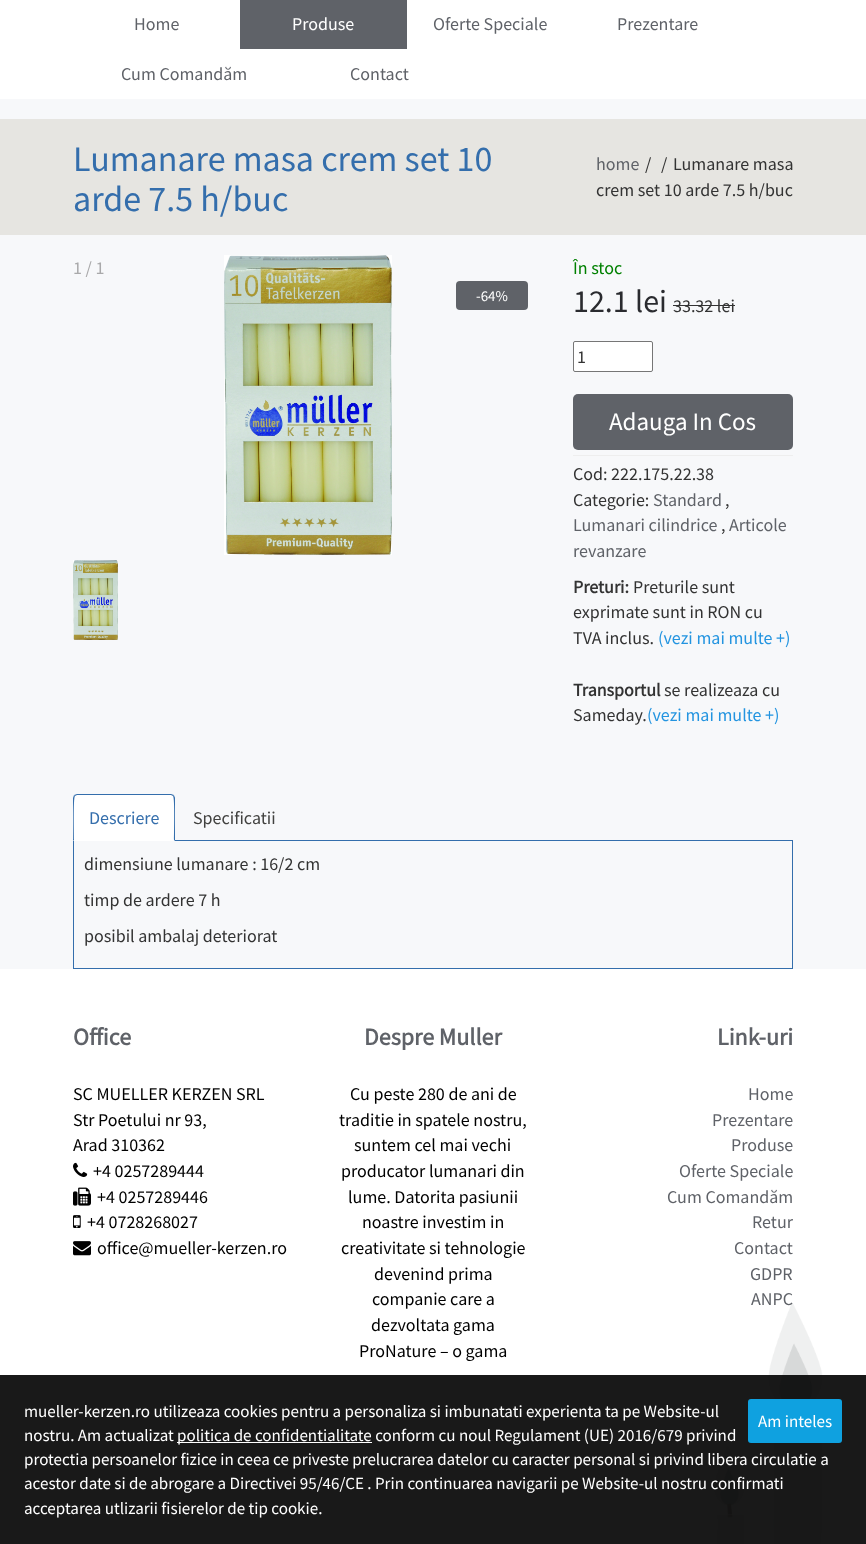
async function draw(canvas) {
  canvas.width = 866
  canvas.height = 1544
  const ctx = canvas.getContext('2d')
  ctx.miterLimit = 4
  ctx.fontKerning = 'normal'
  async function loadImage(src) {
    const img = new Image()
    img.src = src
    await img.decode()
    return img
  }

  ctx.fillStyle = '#f7f8fa'
  ctx.fillRect(0, 0, 866, 1544)
  ctx.fillStyle = '#fff'
  ctx.fillRect(0, 0, 866, 99)
  ctx.font = '18px Source Sans Pro'
  ctx.fillStyle = '#5f6268'
  ctx.fillText('Home', 134, 30)
  ctx.fillRect(240, 0, 167, 49)
  ctx.fillStyle = '#fff'
  ctx.fillText('Produse', 292, 30)
  ctx.fillStyle = '#5f6268'
  ctx.fillText('Oferte Speciale', 433, 30)
  ctx.fillText('Prezentare', 617, 30)
  ctx.fillText('Cum Comandăm', 121, 80)
  ctx.fillText('Contact', 350, 80)
  ctx.fillStyle = '#e6e5e1'
  ctx.fillRect(0, 119, 866, 116)
  ctx.font = '36px Source Sans Pro'
  ctx.fillStyle = '#346eac'
  ctx.fillText('Lumanare masa crem set 10', 73, 171)
  ctx.fillText('arde 7.5 h/buc', 73, 211)
  ctx.font = '18px Source Sans Pro'
  ctx.fillStyle = '#5f6268'
  ctx.fillText('home', 596, 170)
  ctx.fillStyle = '#333'
  ctx.fillText('/', 645, 170)
  ctx.fillText('/', 661, 170)
  ctx.fillText('Lumanare masa', 673, 170)
  ctx.fillText('crem set 10 arde 7.5 h/buc', 596, 196)
  ctx.fillStyle = '#a9a9aa'
  ctx.fillText('1 / 1', 73, 274)
  ctx.drawImage(await loadImage('image0.png'), 224, 255, 168, 300)
  ctx.drawImage(await loadImage('image1.png'), 73, 560, 45, 80)
  ctx.fillStyle = '#5f6268'
  ctx.beginPath()
  ctx.roundRect(456, 281, 72, 29, 4)
  ctx.fill()
  ctx.font = '15px Source Sans Pro'
  ctx.fillStyle = '#fff'
  ctx.fillText('-64%', 476, 301)
  ctx.font = '18px Source Sans Pro'
  ctx.fillStyle = '#008000'
  ctx.fillText('În stoc', 573, 274)
  ctx.font = '32px Source Sans Pro'
  ctx.fillStyle = '#2a2b2f'
  ctx.fillText('12.1 lei', 573, 312)
  ctx.font = '18px Source Sans Pro'
  ctx.fillStyle = '#333'
  ctx.fillText('33.32 lei', 673, 312)
  ctx.fillRect(673, 305, 62, 1)
  ctx.fillStyle = '#fff'
  ctx.beginPath()
  ctx.roundRect(573.5, 341.5, 79, 30, 1.5)
  ctx.fill()
  ctx.strokeStyle = '#767676'
  ctx.stroke()
  ctx.fillStyle = '#333'
  ctx.fillText('1', 577, 363)
  ctx.fillStyle = '#5f6268'
  ctx.beginPath()
  ctx.roundRect(573, 394, 220, 56, 5)
  ctx.fill()
  ctx.font = '25px Source Sans Pro'
  ctx.fillStyle = '#fff'
  ctx.fillText('Adauga In Cos', 609, 430)
  ctx.fillStyle = '#eee'
  ctx.fillRect(573, 455, 220, 1)
  ctx.font = '18px Source Sans Pro'
  ctx.fillStyle = '#333'
  ctx.fillText('Cod: 222.175.22.38', 573, 480)
  ctx.fillText('Categorie:', 573, 506)
  ctx.fillStyle = '#5f6268'
  ctx.fillText('Standard', 653, 506)
  ctx.fillStyle = '#333'
  ctx.fillText(',', 725, 506)
  ctx.fillStyle = '#5f6268'
  ctx.fillText('Lumanari cilindrice', 573, 531)
  ctx.fillStyle = '#333'
  ctx.fillText(',', 721, 531)
  ctx.fillStyle = '#5f6268'
  ctx.fillText('Articole', 729, 531)
  ctx.fillText('revanzare', 573, 557)
  ctx.font = 'bold 18px Source Sans Pro'
  ctx.fillStyle = '#333'
  ctx.fillText('Preturi:', 573, 593)
  ctx.font = '18px Source Sans Pro'
  ctx.fillText('Preturile sunt', 633, 593)
  ctx.fillText('exprimate sunt in RON cu', 573, 618)
  ctx.fillText('TVA inclus.', 573, 644)
  ctx.fillStyle = '#2394e0'
  ctx.fillText('(vezi mai multe +)', 658, 644)
  ctx.font = 'bold 18px Source Sans Pro'
  ctx.fillStyle = '#333'
  ctx.fillText('Transportul', 573, 696)
  ctx.font = '18px Source Sans Pro'
  ctx.fillText('se realizeaza cu', 664, 696)
  ctx.fillText('Sameday.', 573, 721)
  ctx.fillStyle = '#2394e0'
  ctx.fillText('(vezi mai multe +)', 647, 721)
  ctx.fillStyle = '#346eac'
  ctx.fillRect(175, 840, 618, 1)
  ctx.fillStyle = '#fff'
  ctx.beginPath()
  ctx.roundRect(73, 794, 102, 47, [4, 4, 0, 0])
  ctx.fill()
  ctx.fillStyle = '#346eac'
  ctx.beginPath()
  ctx.moveTo(77, 794)
  ctx.lineTo(74, 795)
  ctx.lineTo(75, 796)
  ctx.lineTo(77, 795)
  ctx.lineTo(171, 795)
  ctx.lineTo(173, 796)
  ctx.lineTo(174, 795)
  ctx.lineTo(171, 794)
  ctx.closePath()
  ctx.fill()
  ctx.beginPath()
  ctx.moveTo(175, 841)
  ctx.lineTo(175, 798)
  ctx.bezierCurveTo(175, 797, 174, 796, 174, 795)
  ctx.lineTo(173, 796)
  ctx.bezierCurveTo(175, 798, 174, 835, 174, 840)
  ctx.closePath()
  ctx.fill()
  ctx.beginPath()
  ctx.moveTo(73, 841)
  ctx.lineTo(74, 840)
  ctx.bezierCurveTo(74, 835, 73, 798, 75, 796)
  ctx.lineTo(74, 795)
  ctx.lineTo(73, 798)
  ctx.closePath()
  ctx.fill()
  ctx.fillText('Descriere', 89, 824)
  ctx.fillStyle = '#41413f'
  ctx.fillText('Specificatii', 193, 824)
  ctx.fillStyle = '#346eac'
  ctx.fillRect(792, 841, 1, 128)
  ctx.fillRect(73, 968, 720, 1)
  ctx.fillRect(73, 841, 1, 128)
  ctx.fillStyle = '#333'
  ctx.fillText('dimensiune lumanare : 16/2 cm', 84, 870)
  ctx.fillText('timp de ardere 7 h', 84, 906)
  ctx.fillText('posibil ambalaj deteriorat', 84, 942)
  ctx.fillStyle = '#fff'
  ctx.fillRect(0, 969, 866, 575)
  ctx.font = 'bold 24px Source Sans Pro'
  ctx.fillStyle = '#5f6268'
  ctx.fillText('Office', 73, 1045)
  ctx.font = '18px Source Sans Pro'
  ctx.fillStyle = '#000'
  ctx.fillText('SC MUELLER KERZEN SRL', 73, 1100)
  ctx.fillText('Str Poetului nr 93,', 73, 1126)
  ctx.fillText('Arad 310362', 73, 1151)
  ctx.drawImage(await loadImage('image2.png'), 73, 1162, 15, 15)
  ctx.fillText('+4 0257289444', 93, 1177)
  ctx.drawImage(await loadImage('image3.png'), 73, 1187, 18, 19)
  ctx.fillText('+4 0257289446', 97, 1203)
  ctx.drawImage(await loadImage('image4.png'), 73, 1215, 8, 13)
  ctx.fillText('+4 0728268027', 87, 1228)
  ctx.drawImage(await loadImage('image5.png'), 73, 1241, 18, 15)
  ctx.fillText('office@mueller-kerzen.ro', 97, 1254)
  ctx.font = 'bold 24px Source Sans Pro'
  ctx.fillStyle = '#5f6268'
  ctx.fillText('Despre Muller', 364, 1045)
  ctx.font = '18px Source Sans Pro'
  ctx.fillStyle = '#000'
  ctx.fillText('Cu peste 280 de ani de', 350, 1100)
  ctx.fillText('traditie in spatele nostru,', 339, 1126)
  ctx.fillText('suntem cel mai vechi', 354, 1151)
  ctx.fillText('producator lumanari din', 341, 1177)
  ctx.fillText('lume. Datorita pasiunii', 348, 1203)
  ctx.fillText('noastre investim in', 362, 1228)
  ctx.fillText('creativitate si tehnologie', 341, 1254)
  ctx.fillText('devenind prima', 374, 1280)
  ctx.fillText('companie care a', 372, 1305)
  ctx.fillText('dezvoltata gama', 371, 1331)
  ctx.fillText('ProNature – o gama', 359, 1357)
  ctx.font = 'bold 24px Source Sans Pro'
  ctx.fillStyle = '#5f6268'
  ctx.fillText('Link-uri', 717, 1045)
  ctx.font = '18px Source Sans Pro'
  ctx.fillText('Home', 748, 1100)
  ctx.fillText('Prezentare', 712, 1126)
  ctx.fillText('Produse', 731, 1151)
  ctx.fillText('Oferte Speciale', 679, 1177)
  ctx.fillText('Cum Comandăm', 667, 1203)
  ctx.fillText('Retur', 752, 1228)
  ctx.fillText('Contact', 734, 1254)
  ctx.fillText('GDPR', 750, 1280)
  ctx.drawImage(await loadImage('image6.png'), 714, 1303, 109, 241)
  ctx.fillText('ANPC', 751, 1305)
  ctx.fillStyle = '#000000e6'
  ctx.fillRect(0, 1375, 866, 169)
  ctx.font = '17px Source Sans Pro'
  ctx.fillStyle = '#fff'
  ctx.fillText('mueller-kerzen.ro utilizeaza cookies pentru a personaliza si imbunatati experienta ta pe Website-ul', 24, 1417)
  ctx.fillStyle = '#0fa1e0'
  ctx.beginPath()
  ctx.roundRect(748, 1399, 94, 44, 3)
  ctx.fill()
  ctx.fillStyle = '#fff'
  ctx.fillText('Am inteles', 758, 1427)
  ctx.fillText('nostru. Am actualizat', 24, 1441)
  ctx.fillRect(177, 1442, 195, 1)
  ctx.fillText('politica de confidentialitate conform cu noul Regulament (UE) 2016/679 privind', 177, 1441)
  ctx.fillText('protectia persoanelor fizice in ceea ce priveste prelucrarea datelor cu caracter personal si privind libera circulatie a', 24, 1465)
  ctx.fillText('acestor date si de abrogare a Directivei 95/46/CE . Prin continuarea navigarii pe Website-ul nostru confirmati', 24, 1489)
  ctx.fillText('acceptarea utlizarii fisierelor de tip cookie.', 24, 1514)
}

draw(document.querySelector('canvas'))
